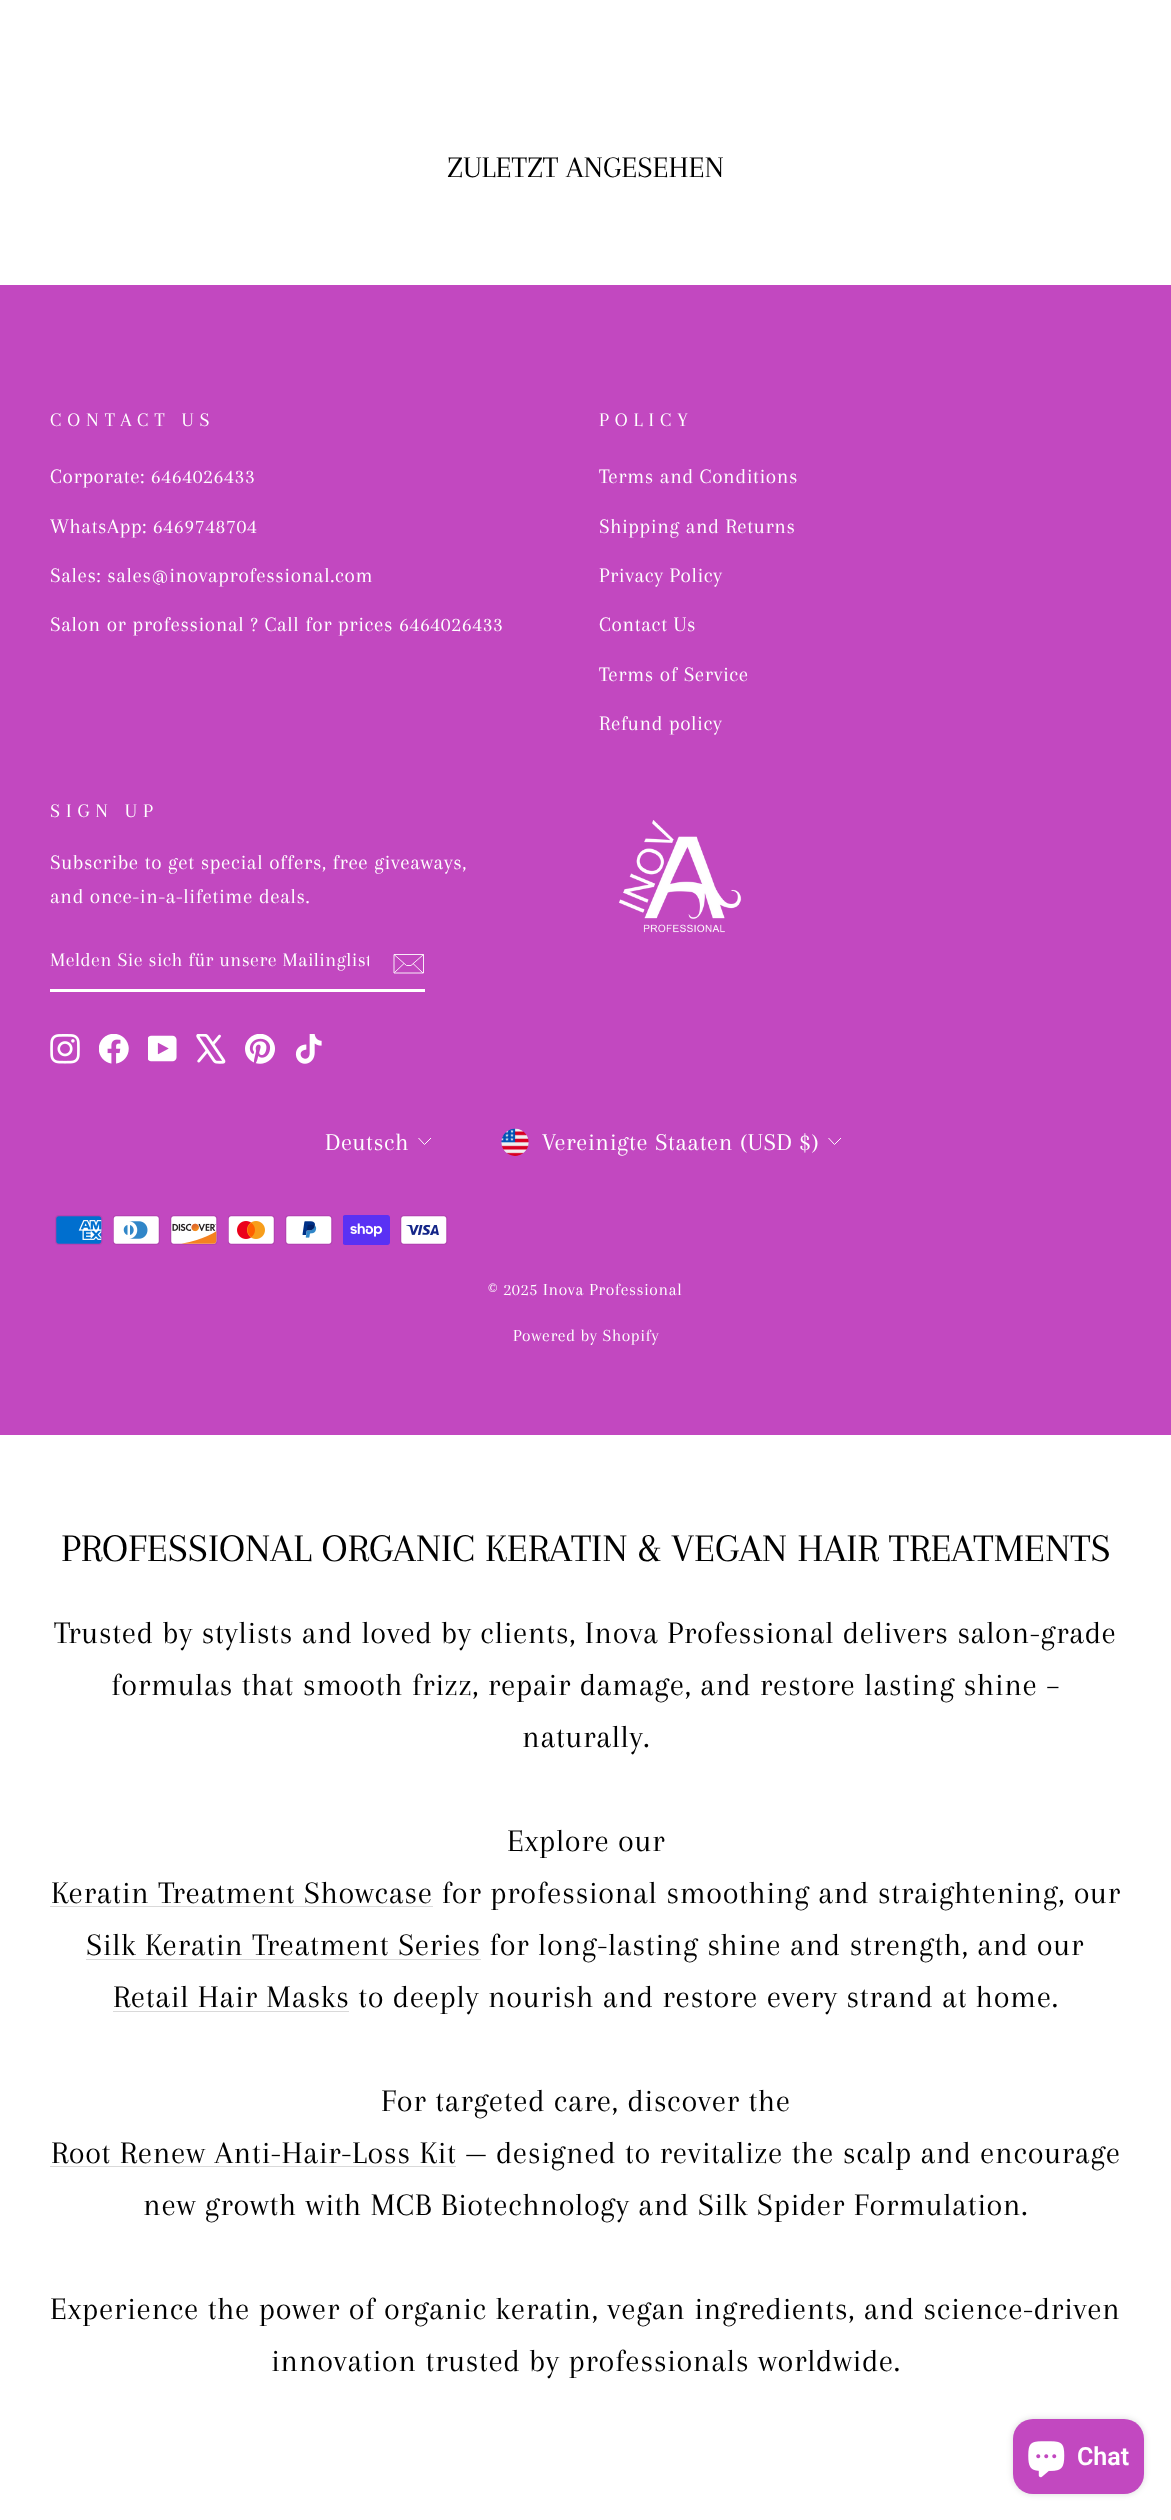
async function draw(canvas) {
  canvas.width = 1171
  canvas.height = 2520
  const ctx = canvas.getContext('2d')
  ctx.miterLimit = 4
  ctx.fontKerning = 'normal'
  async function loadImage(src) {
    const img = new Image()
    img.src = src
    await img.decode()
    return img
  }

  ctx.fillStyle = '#fff'
  ctx.fillRect(0, 0, 1171, 2520)
  ctx.font = '30.9px Arapey'
  ctx.fillStyle = '#000'
  ctx.fillText('ZULETZT ANGESEHEN', 447, 177)
  ctx.fillStyle = '#c248c0'
  ctx.fillRect(0, 285, 1171, 1150)
  ctx.letterSpacing = '6px'
  ctx.font = '20px Arapey'
  ctx.fillStyle = '#fff'
  ctx.fillText('CONTACT US', 50, 426)
  ctx.letterSpacing = '0.62px'
  ctx.font = '21.25px Arapey'
  ctx.fillText('Corporate: 6464026433', 50, 483)
  ctx.fillText('WhatsApp: 6469748704', 50, 533)
  ctx.fillText('Sales: sales@inovaprofessional.com', 50, 582)
  ctx.fillText('Salon or professional ? Call for prices 6464026433', 50, 631)
  ctx.letterSpacing = '6px'
  ctx.font = '20px Arapey'
  ctx.fillText('POLICY', 599, 426)
  ctx.letterSpacing = '0.62px'
  ctx.font = '21.25px Arapey'
  ctx.fillText('Terms and Conditions', 599, 483)
  ctx.fillText('Shipping and Returns', 599, 533)
  ctx.fillText('Privacy Policy', 599, 582)
  ctx.fillText('Contact Us', 599, 631)
  ctx.fillText('Terms of Service', 599, 681)
  ctx.fillText('Refund policy', 599, 730)
  ctx.letterSpacing = '6px'
  ctx.font = '20px Arapey'
  ctx.fillText('SIGN UP', 50, 817)
  ctx.letterSpacing = '0.62px'
  ctx.font = '21.25px Arapey'
  ctx.fillText('Subscribe to get special offers, free giveaways,', 50, 869)
  ctx.fillText('and once-in-a-lifetime deals.', 50, 903)
  ctx.fillRect(50, 989, 375, 3)
  ctx.save()
  ctx.beginPath()
  ctx.rect(50, 949, 319, 22)
  ctx.clip()
  ctx.letterSpacing = '0.5px'
  ctx.font = '20px Arapey'
  ctx.fillText('Melden Sie sich für unsere Mailinglist', 50, 966)
  ctx.restore()
  ctx.beginPath()
  ctx.moveTo(423.5, 973)
  ctx.lineTo(394, 973)
  ctx.lineTo(394, 954.5)
  ctx.lineTo(423.5, 954.5)
  ctx.closePath()
  ctx.moveTo(394, 954.5)
  ctx.lineTo(406.5, 965.5)
  ctx.lineTo(411, 965.5)
  ctx.lineTo(423.5, 954.5)
  ctx.moveTo(404, 963.5)
  ctx.lineTo(394.5, 972.5)
  ctx.moveTo(423, 973)
  ctx.lineTo(413, 963.5)
  ctx.strokeStyle = '#fff'
  ctx.lineWidth = 0.9
  ctx.stroke()
  ctx.drawImage(await loadImage('image0.png'), 50, 1034, 30, 30)
  ctx.drawImage(await loadImage('image1.png'), 99, 1034, 30, 30)
  ctx.drawImage(await loadImage('image2.png'), 148, 1035, 29, 27)
  ctx.drawImage(await loadImage('image3.png'), 196, 1034, 30, 30)
  ctx.drawImage(await loadImage('image4.png'), 245, 1034, 30, 30)
  ctx.drawImage(await loadImage('image5.png'), 295, 1034, 27, 30)
  ctx.drawImage(await loadImage('image6.png'), 618, 820, 124, 113)
  ctx.font = '25px Arapey'
  ctx.fillText('Deutsch', 325, 1150)
  ctx.beginPath()
  ctx.moveTo(418.5, 1138)
  ctx.lineTo(424.5, 1144.5)
  ctx.lineTo(431, 1138)
  ctx.lineWidth = 1
  ctx.stroke()
  ctx.drawImage(await loadImage('image7.png'), 501, 1128, 28, 28)
  ctx.fillText('Vereinigte Staaten (USD $)', 542, 1150)
  ctx.beginPath()
  ctx.moveTo(828.5, 1138)
  ctx.lineTo(834.5, 1144.5)
  ctx.lineTo(841, 1138)
  ctx.stroke()
  ctx.drawImage(await loadImage('image8.png'), 55, 1215, 48, 30)
  ctx.drawImage(await loadImage('image9.png'), 113, 1215, 47, 30)
  ctx.drawImage(await loadImage('image10.png'), 170, 1215, 48, 30)
  ctx.drawImage(await loadImage('image11.png'), 228, 1215, 47, 30)
  ctx.drawImage(await loadImage('image12.png'), 285, 1215, 48, 30)
  ctx.drawImage(await loadImage('image13.png'), 343, 1215, 47, 30)
  ctx.drawImage(await loadImage('image14.png'), 400, 1215, 48, 30)
  ctx.font = '17.5px Arapey'
  ctx.fillText('© 2025 Inova Professional', 488, 1295)
  ctx.fillText('Powered by Shopify', 513, 1341)
  ctx.letterSpacing = '0px'
  ctx.font = '40.4px Arapey'
  ctx.fillStyle = '#000'
  ctx.fillText('PROFESSIONAL ORGANIC KERATIN & VEGAN HAIR TREATMENTS', 61, 1561)
  ctx.letterSpacing = '0.62px'
  ctx.font = '32.5px Arapey'
  ctx.fillText('Trusted by stylists and loved by clients, Inova Professional delivers salon-grade', 54, 1643)
  ctx.fillText('formulas that smooth frizz, repair damage, and restore lasting shine –', 111, 1695)
  ctx.fillText('naturally.', 522, 1747)
  ctx.fillText('Explore our', 507, 1851)
  ctx.fillStyle = '#d9d9d9'
  ctx.fillRect(50, 1906, 383, 1)
  ctx.fillStyle = '#000'
  ctx.fillText('Keratin Treatment Showcase for professional smoothing and straightening, our', 51, 1903)
  ctx.fillStyle = '#d9d9d9'
  ctx.fillRect(86, 1959, 395, 1)
  ctx.fillStyle = '#000'
  ctx.fillText('Silk Keratin Treatment Series for long-lasting shine and strength, and our', 86, 1955)
  ctx.fillStyle = '#d9d9d9'
  ctx.fillRect(113, 2011, 236, 1)
  ctx.fillStyle = '#000'
  ctx.fillText('Retail Hair Masks to deeply nourish and restore every strand at home.', 113, 2007)
  ctx.fillText('For targeted care, discover the', 381, 2111)
  ctx.fillStyle = '#d9d9d9'
  ctx.fillRect(50, 2166, 406, 1)
  ctx.fillStyle = '#000'
  ctx.fillText('Root Renew Anti-Hair-Loss Kit — designed to revitalize the scalp and encourage', 51, 2163)
  ctx.fillText('new growth with MCB Biotechnology and Silk Spider Formulation.', 143, 2215)
  ctx.fillText('Experience the power of organic keratin, vegan ingredients, and science-driven', 50, 2319)
  ctx.fillText('innovation trusted by professionals worldwide.', 271, 2371)
  ctx.fillStyle = '#00000026'
  ctx.filter = 'blur(3px)'
  ctx.beginPath()
  ctx.roundRect(1013, 2419, 131, 75, 20)
  ctx.fill()
  ctx.filter = 'none'
  ctx.fillStyle = '#c248c0'
  ctx.beginPath()
  ctx.roundRect(1013, 2419, 131, 75, 20)
  ctx.fill()
  ctx.drawImage(await loadImage('image15.png'), 1028, 2441, 37, 37)
  ctx.letterSpacing = '0px'
  ctx.font = '600 25px Roboto'
  ctx.fillStyle = '#fff'
  ctx.fillText('Chat', 1077, 2465)
}

draw(document.querySelector('canvas'))
